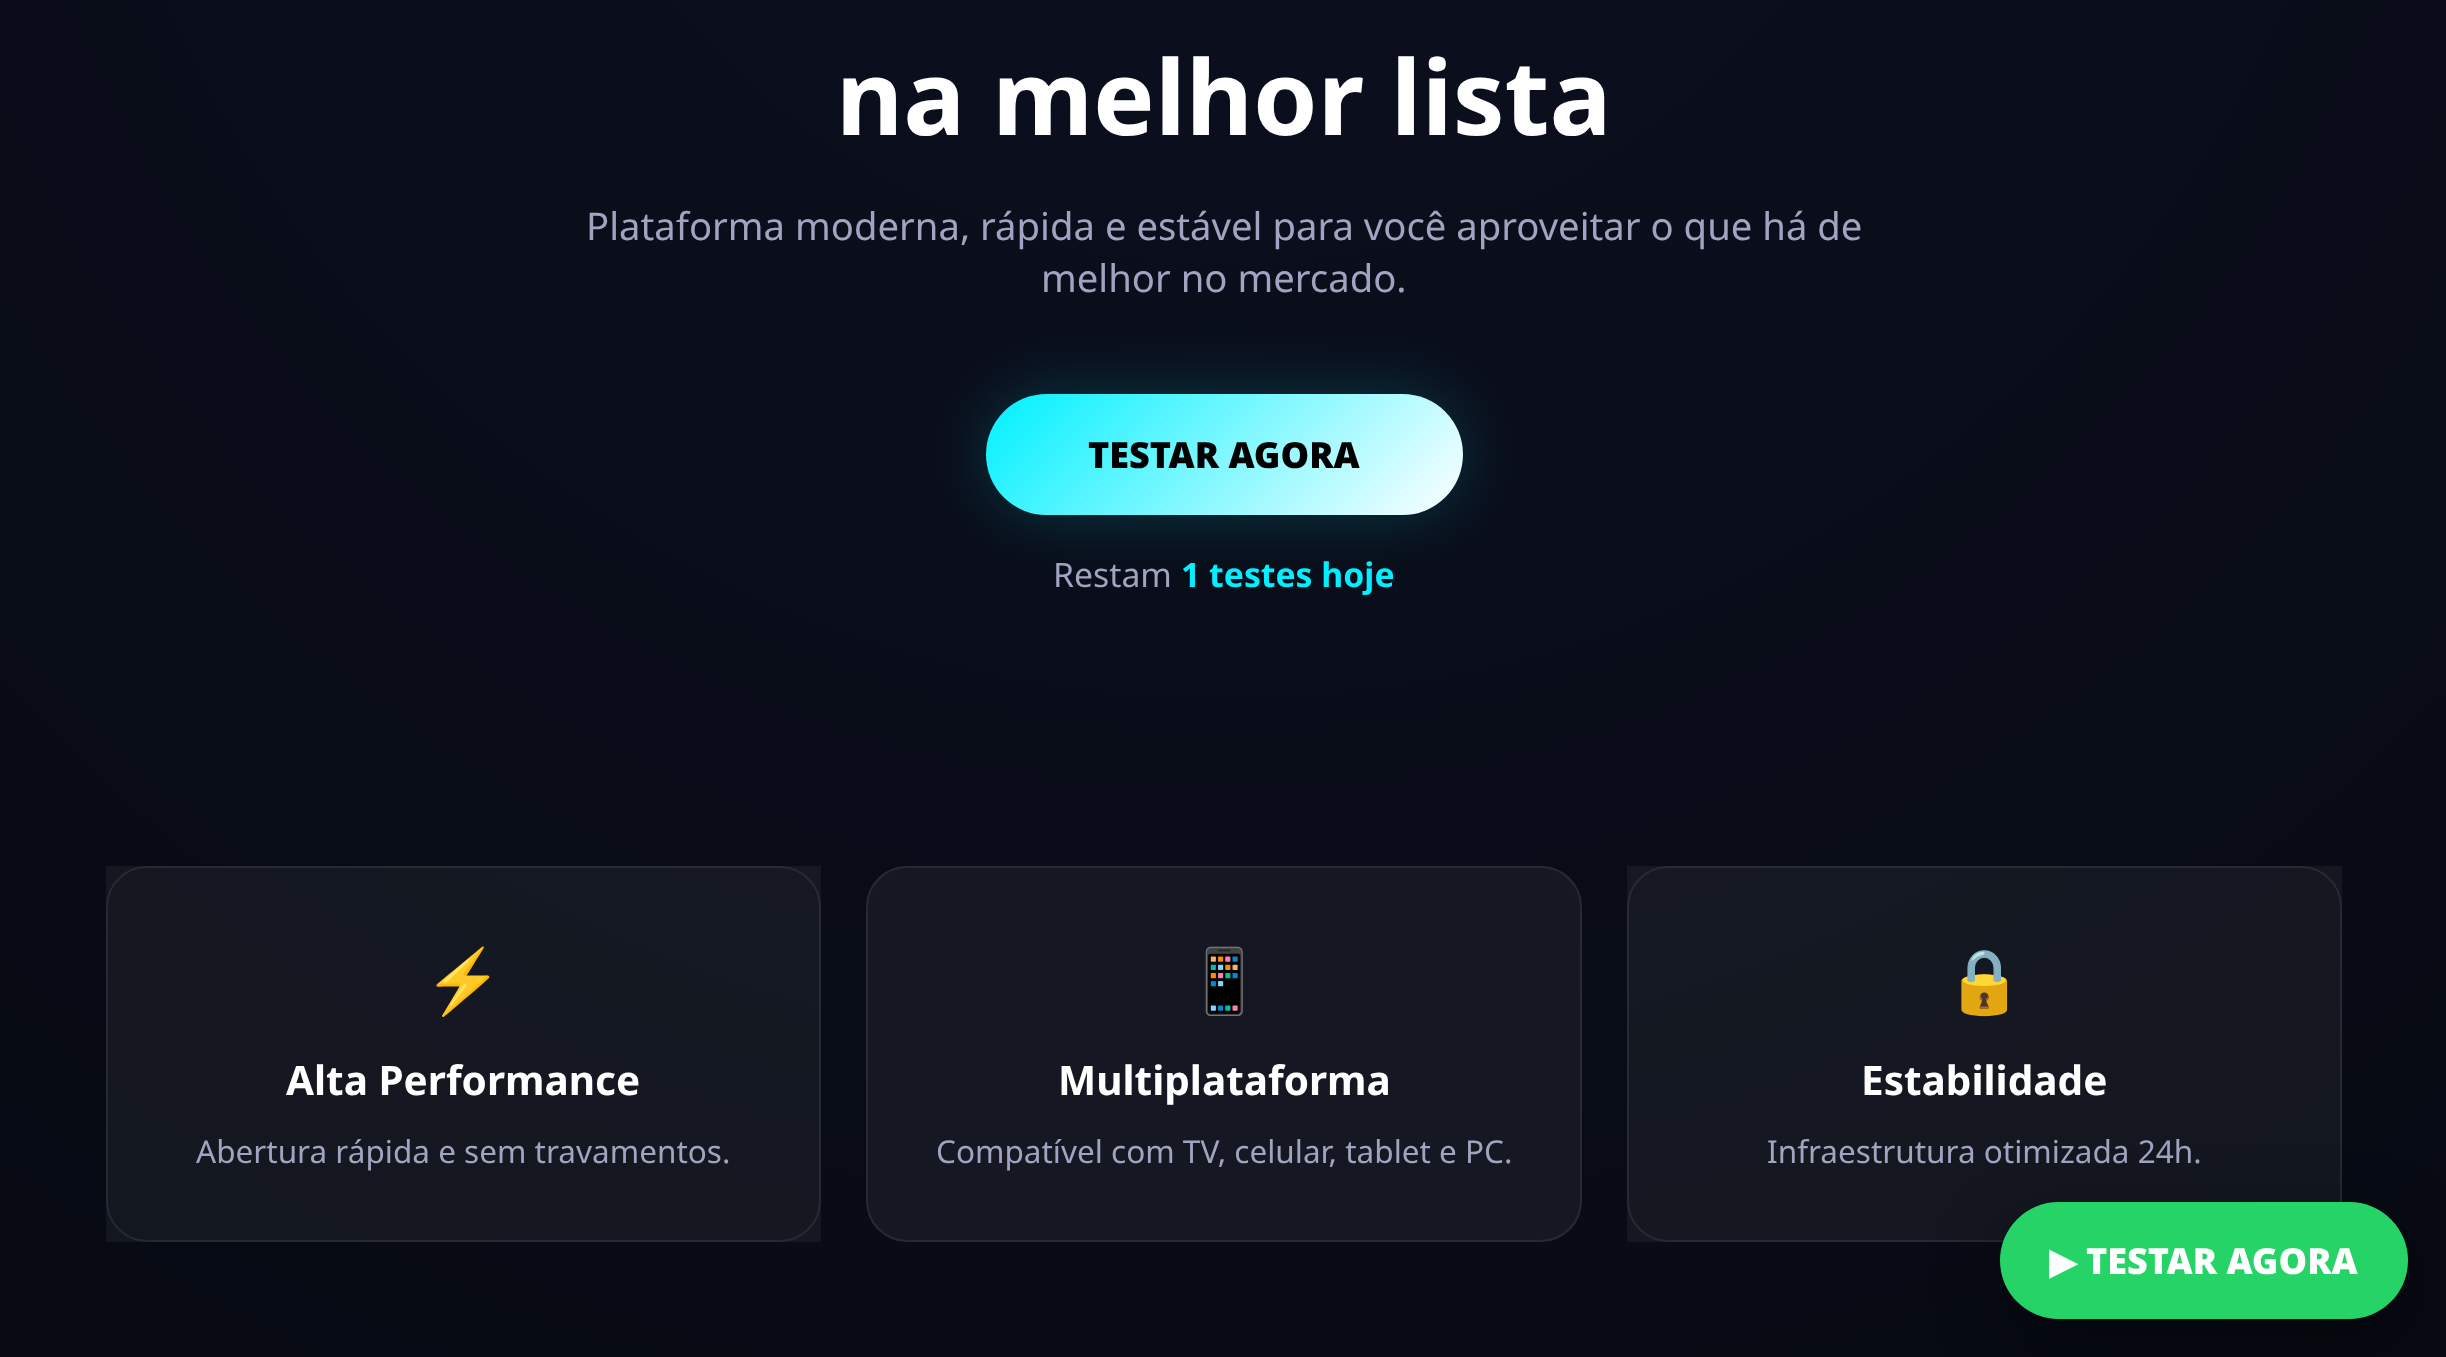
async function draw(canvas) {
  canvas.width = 2446
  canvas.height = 1357
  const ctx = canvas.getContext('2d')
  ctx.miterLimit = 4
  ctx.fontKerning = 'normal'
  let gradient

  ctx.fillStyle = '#fff'
  ctx.fillRect(0, 0, 2446, 1357)
  gradient = ctx.createRadialGradient(1224, -452, 0, 1224, -452, 2334)
  gradient.addColorStop(0, '#0c1020')
  gradient.addColorStop(1, '#070a12')
  ctx.fillStyle = gradient
  ctx.fillRect(0, 0, 2446, 1357)
  ctx.font = 'bold 103.5px Noto Sans'
  ctx.fillStyle = '#fff'
  ctx.fillText('na melhor lista', 836, 135)
  ctx.font = '38.25px Noto Sans'
  ctx.fillStyle = '#a0a4c0'
  ctx.fillText('Plataforma moderna, rápida e estável para você aproveitar o que há de', 586, 240)
  ctx.fillText('melhor no mercado.', 1041, 292)
  ctx.fillStyle = '#00f0ff2e'
  ctx.filter = 'blur(34px)'
  ctx.beginPath()
  ctx.roundRect(986, 394, 477, 121, 60.5)
  ctx.fill()
  ctx.filter = 'none'
  gradient = ctx.createLinearGradient(1074, 305, 1374, 604)
  gradient.addColorStop(0, '#00f0ff')
  gradient.addColorStop(1, '#fff')
  ctx.fillStyle = gradient
  ctx.beginPath()
  ctx.roundRect(986, 394, 477, 121, 60.5)
  ctx.fill()
  ctx.font = '900 36px Noto Sans'
  ctx.fillStyle = '#000'
  ctx.fillText('TESTAR AGORA', 1088, 468)
  ctx.font = '33.75px Noto Sans'
  ctx.fillStyle = '#a0a4c0'
  ctx.fillText('Restam', 1053, 587)
  ctx.font = 'bold 33.75px Noto Sans'
  ctx.fillStyle = '#00f0ff'
  ctx.fillText('1 testes hoje', 1181, 587)
  ctx.fillStyle = '#ffffff0d'
  ctx.fillRect(106, 866, 715, 376)
  ctx.beginPath()
  ctx.roundRect(107, 867, 713, 374, 40)
  ctx.strokeStyle = '#ffffff14'
  ctx.lineWidth = 2
  ctx.stroke()
  ctx.font = '63px Noto Color Emoji'
  ctx.fillStyle = '#fff'
  ctx.fillText('⚡', 424, 1003)
  ctx.font = 'bold 40.5px Noto Sans'
  ctx.fillText('Alta Performance', 286, 1095)
  ctx.font = '31.5px Noto Sans'
  ctx.fillStyle = '#a0a4c0'
  ctx.fillText('Abertura rápida e sem travamentos.', 196, 1163)
  ctx.fillStyle = '#151823'
  ctx.beginPath()
  ctx.roundRect(866, 866, 716, 376, 41)
  ctx.fill()
  ctx.beginPath()
  ctx.roundRect(867, 867, 714, 374, 40)
  ctx.stroke()
  ctx.font = '63px Noto Color Emoji'
  ctx.fillStyle = '#fff'
  ctx.fillText('📱', 1185, 1003)
  ctx.font = 'bold 40.5px Noto Sans'
  ctx.fillText('Multiplataforma', 1058, 1095)
  ctx.font = '31.5px Noto Sans'
  ctx.fillStyle = '#a0a4c0'
  ctx.fillText('Compatível com TV, celular, tablet e PC.', 936, 1163)
  ctx.fillStyle = '#ffffff0d'
  ctx.fillRect(1627, 866, 715, 376)
  ctx.beginPath()
  ctx.roundRect(1628, 867, 713, 374, 40)
  ctx.stroke()
  ctx.font = '63px Noto Color Emoji'
  ctx.fillStyle = '#fff'
  ctx.fillText('🔒', 1945, 1003)
  ctx.font = 'bold 40.5px Noto Sans'
  ctx.fillText('Estabilidade', 1861, 1095)
  ctx.font = '31.5px Noto Sans'
  ctx.fillStyle = '#a0a4c0'
  ctx.fillText('Infraestrutura otimizada 24h.', 1767, 1163)
  ctx.fillStyle = '#00000073'
  ctx.filter = 'blur(34px)'
  ctx.beginPath()
  ctx.roundRect(2000, 1224, 408, 117, 58.5)
  ctx.fill()
  ctx.filter = 'none'
  ctx.fillStyle = '#25d366'
  ctx.beginPath()
  ctx.roundRect(2000, 1202, 408, 117, 58.5)
  ctx.fill()
  ctx.font = 'bold 36px DejaVu Sans'
  ctx.fillStyle = '#fff'
  ctx.fillText('▶', 2049, 1274)
  ctx.font = '900 36px Noto Sans'
  ctx.fillText('TESTAR AGORA', 2086, 1274)
}

draw(document.querySelector('canvas'))
